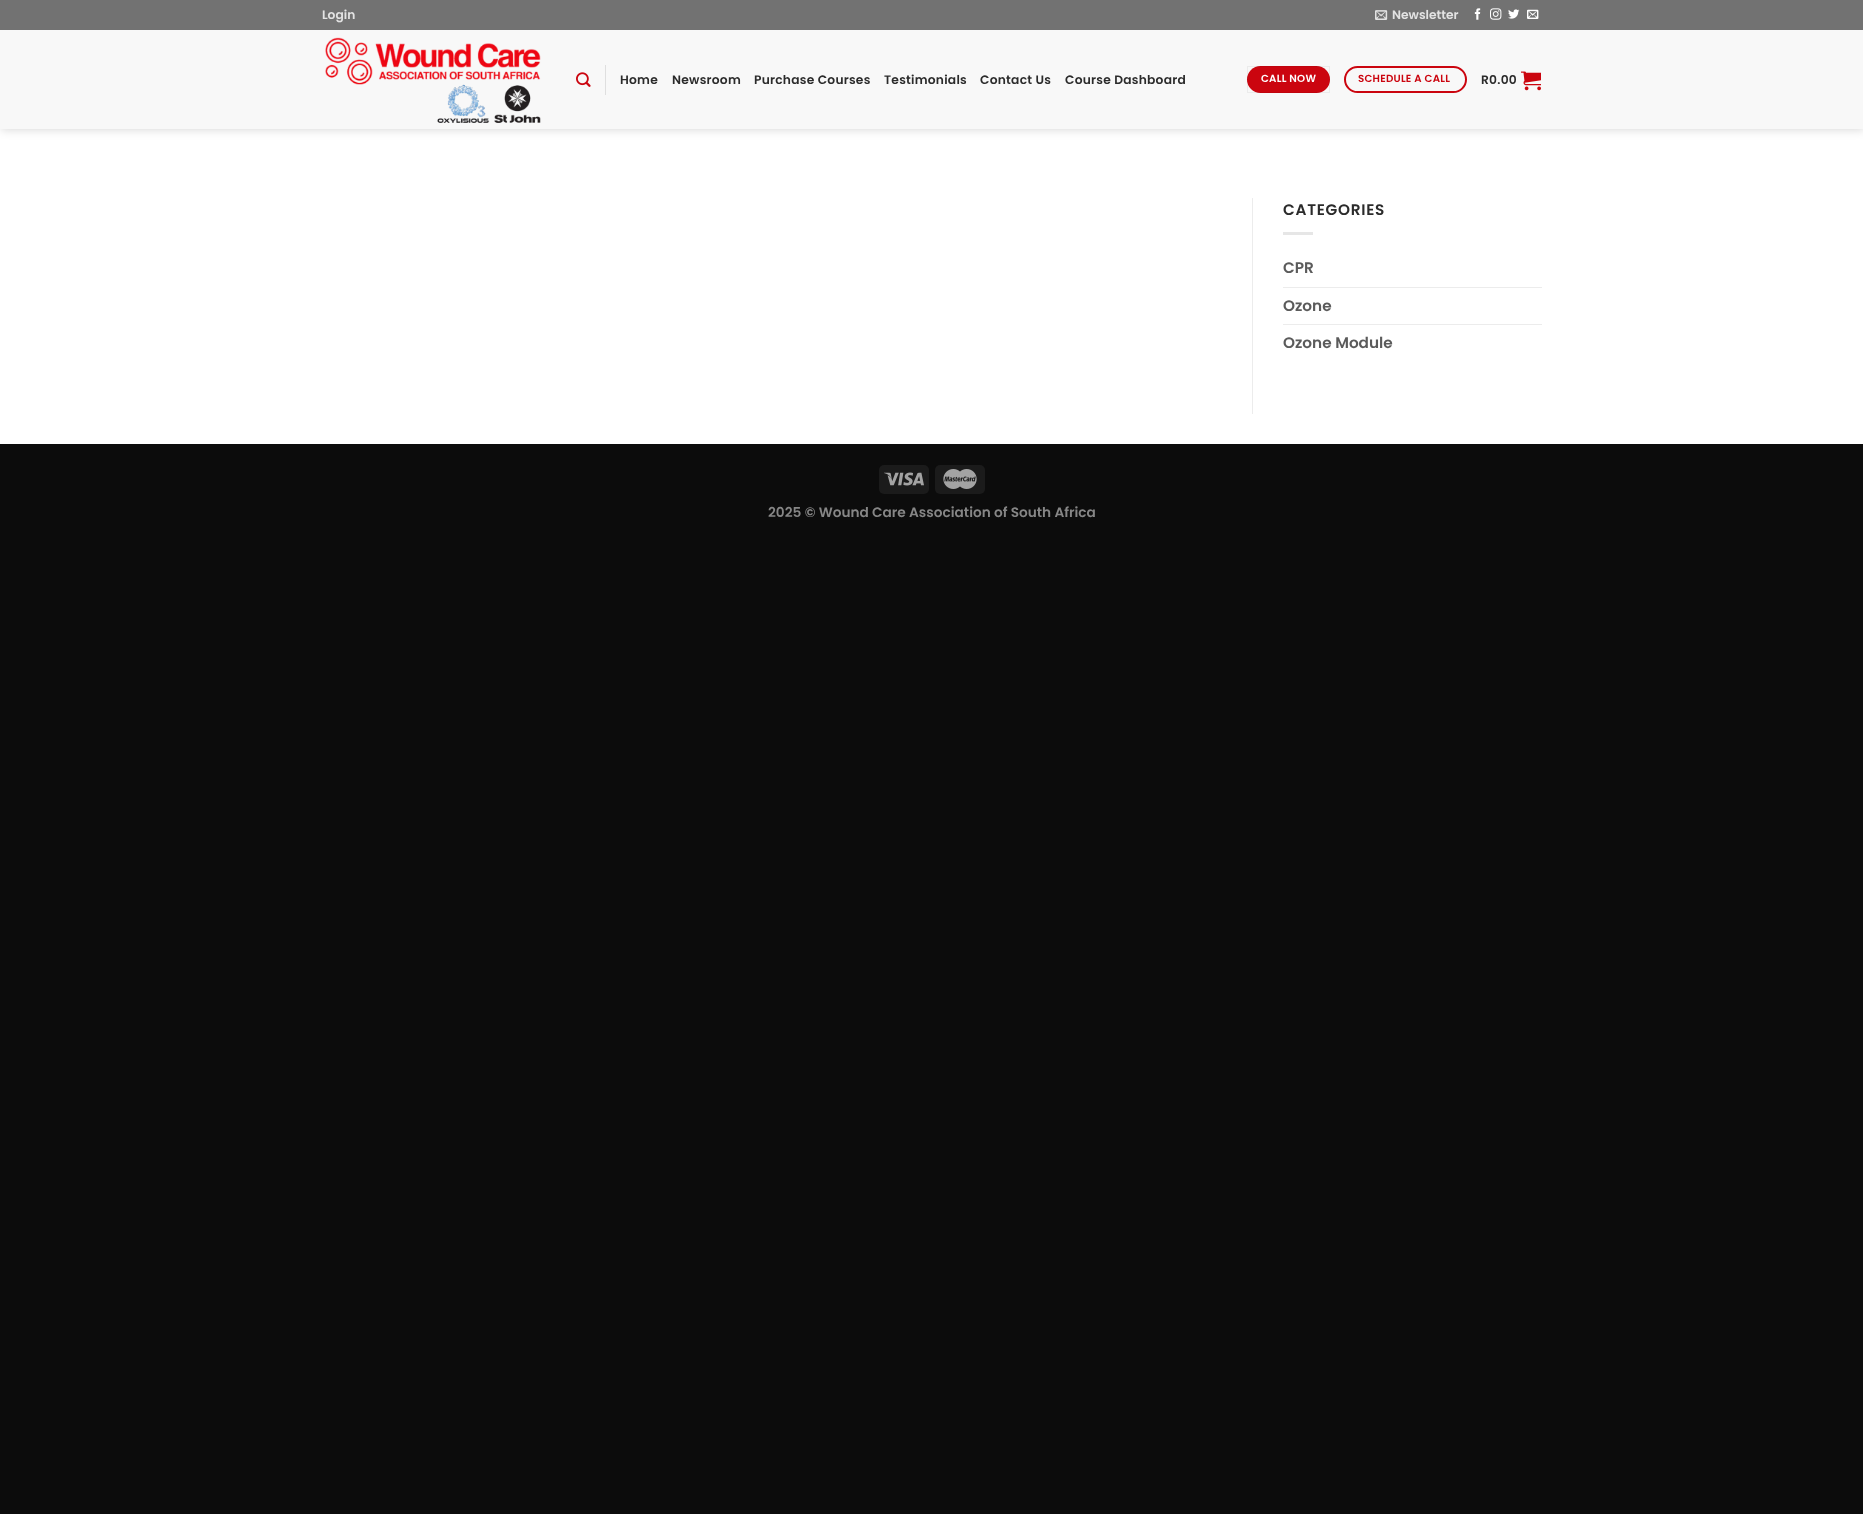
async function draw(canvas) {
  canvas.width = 1863
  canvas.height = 1514
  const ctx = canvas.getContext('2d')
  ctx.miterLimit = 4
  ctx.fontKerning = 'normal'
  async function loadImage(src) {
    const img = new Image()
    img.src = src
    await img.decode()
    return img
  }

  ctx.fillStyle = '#0c0c0c'
  ctx.fillRect(0, 0, 1863, 1514)
  ctx.fillStyle = '#fff'
  ctx.fillRect(0, 129, 1863, 315)
  ctx.fillStyle = '#00000026'
  ctx.filter = 'blur(5px)'
  ctx.beginPath()
  ctx.rect(1, 1, 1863, 129)
  ctx.fill()
  ctx.filter = 'none'
  ctx.fillStyle = '#727272'
  ctx.fillRect(0, 0, 1863, 30)
  ctx.font = '600 12.25px Poppins'
  ctx.fillStyle = '#e3e3e3'
  ctx.fillText('Login', 322, 19)
  ctx.drawImage(await loadImage('image0.png'), 1375, 10, 13, 10)
  ctx.fillText('Newsletter', 1392, 19)
  ctx.drawImage(await loadImage('image1.png'), 1474, 8, 7, 12)
  ctx.drawImage(await loadImage('image2.png'), 1490, 8, 12, 12)
  ctx.drawImage(await loadImage('image3.png'), 1508, 9, 12, 10)
  ctx.drawImage(await loadImage('image4.png'), 1527, 9, 12, 10)
  ctx.fillStyle = '#f8f8f8'
  ctx.fillRect(0, 30, 1863, 99)
  ctx.drawImage(await loadImage('image5.png'), 325, 37, 216, 86)
  ctx.drawImage(await loadImage('image6.png'), 576, 72, 15, 15)
  ctx.fillStyle = '#dfdfdf'
  ctx.fillRect(605, 65, 1, 30)
  ctx.letterSpacing = '0.25px'
  ctx.fillStyle = '#2b2b2b'
  ctx.fillText('Home', 620, 84)
  ctx.fillText('Newsroom', 672, 84)
  ctx.fillText('Purchase Courses', 754, 84)
  ctx.fillText('Testimonials', 884, 84)
  ctx.fillText('Contact Us', 980, 84)
  ctx.fillText('Course Dashboard', 1065, 84)
  ctx.fillStyle = '#cb050f'
  ctx.beginPath()
  ctx.roundRect(1247, 66, 83, 27, 13.5)
  ctx.fill()
  ctx.strokeStyle = '#0000000d'
  ctx.strokeRect(1247.5, 66.5, 82, 26)
  ctx.font = '600 10.25px Poppins'
  ctx.fillStyle = '#fff'
  ctx.fillText('CALL NOW', 1261, 82)
  ctx.beginPath()
  ctx.roundRect(1345, 67, 121, 25, 12.5)
  ctx.strokeStyle = '#cb050f'
  ctx.lineWidth = 2
  ctx.stroke()
  ctx.fillStyle = '#cb050f'
  ctx.fillText('SCHEDULE A CALL', 1358, 82)
  ctx.font = '600 12.25px Poppins'
  ctx.fillStyle = '#2b2b2b'
  ctx.fillText('R0.00', 1481, 84)
  ctx.drawImage(await loadImage('image7.png'), 1521, 71, 20, 20)
  ctx.fillStyle = '#ececec'
  ctx.fillRect(1252, 198, 1, 216)
  ctx.letterSpacing = '0.75px'
  ctx.font = '600 15.25px Poppins'
  ctx.fillStyle = '#2b2b2b'
  ctx.fillText('CATEGORIES', 1283, 215)
  ctx.fillStyle = '#e6e6e6'
  ctx.fillRect(1283, 232, 30, 3)
  ctx.letterSpacing = '0px'
  ctx.fillStyle = '#5b5b5b'
  ctx.fillText('CPR', 1283, 273)
  ctx.fillStyle = '#ececec'
  ctx.fillRect(1283, 287, 259, 1)
  ctx.fillStyle = '#5b5b5b'
  ctx.fillText('Ozone', 1283, 311)
  ctx.fillStyle = '#ececec'
  ctx.fillRect(1283, 324, 259, 1)
  ctx.fillStyle = '#5b5b5b'
  ctx.fillText('Ozone Module', 1283, 348)
  ctx.fillStyle = '#1b1b1b'
  ctx.beginPath()
  ctx.roundRect(879, 465, 50, 29, 5)
  ctx.fill()
  ctx.drawImage(await loadImage('image8.png'), 884, 472, 40, 14)
  ctx.beginPath()
  ctx.roundRect(935, 465, 50, 29, 5)
  ctx.fill()
  ctx.drawImage(await loadImage('image9.png'), 943, 469, 34, 20)
  ctx.font = '600 13.7px Poppins'
  ctx.fillStyle = '#868686'
  ctx.fillText('2025 © Wound Care Association of South Africa', 768, 517)
}

draw(document.querySelector('canvas'))
